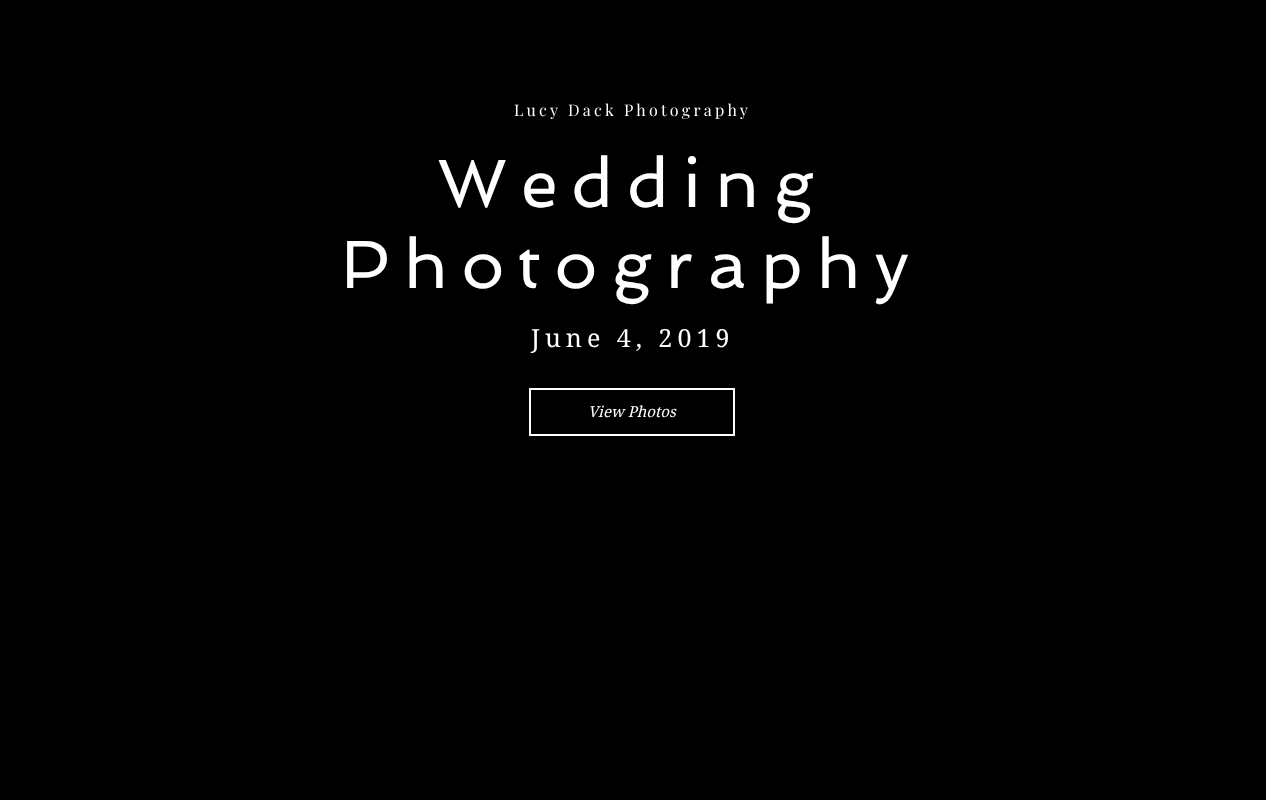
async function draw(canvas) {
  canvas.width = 1266
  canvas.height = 800
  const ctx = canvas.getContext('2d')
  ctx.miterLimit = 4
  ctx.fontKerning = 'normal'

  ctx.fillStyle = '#000'
  ctx.fillRect(0, 0, 1266, 800)
  ctx.letterSpacing = '3.2px'
  ctx.font = '16px Playfair Display'
  ctx.fillStyle = '#fff'
  ctx.fillText('Lucy Dack Photography', 514, 116)
  ctx.letterSpacing = '13.6px'
  ctx.font = '68px Spinnaker'
  ctx.fillText('Wedding', 437, 207)
  ctx.fillText('Photography', 341, 288)
  ctx.letterSpacing = '5px'
  ctx.font = '25px "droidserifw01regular"'
  ctx.fillText('June 4, 2019', 531, 347)
  ctx.strokeStyle = '#fff'
  ctx.lineWidth = 2
  ctx.strokeRect(530, 389, 204, 46)
  ctx.letterSpacing = '0px'
  ctx.font = 'italic 15px "droidserifw01regular"'
  ctx.fillText('View Photos', 588, 417)
}

draw(document.querySelector('canvas'))
